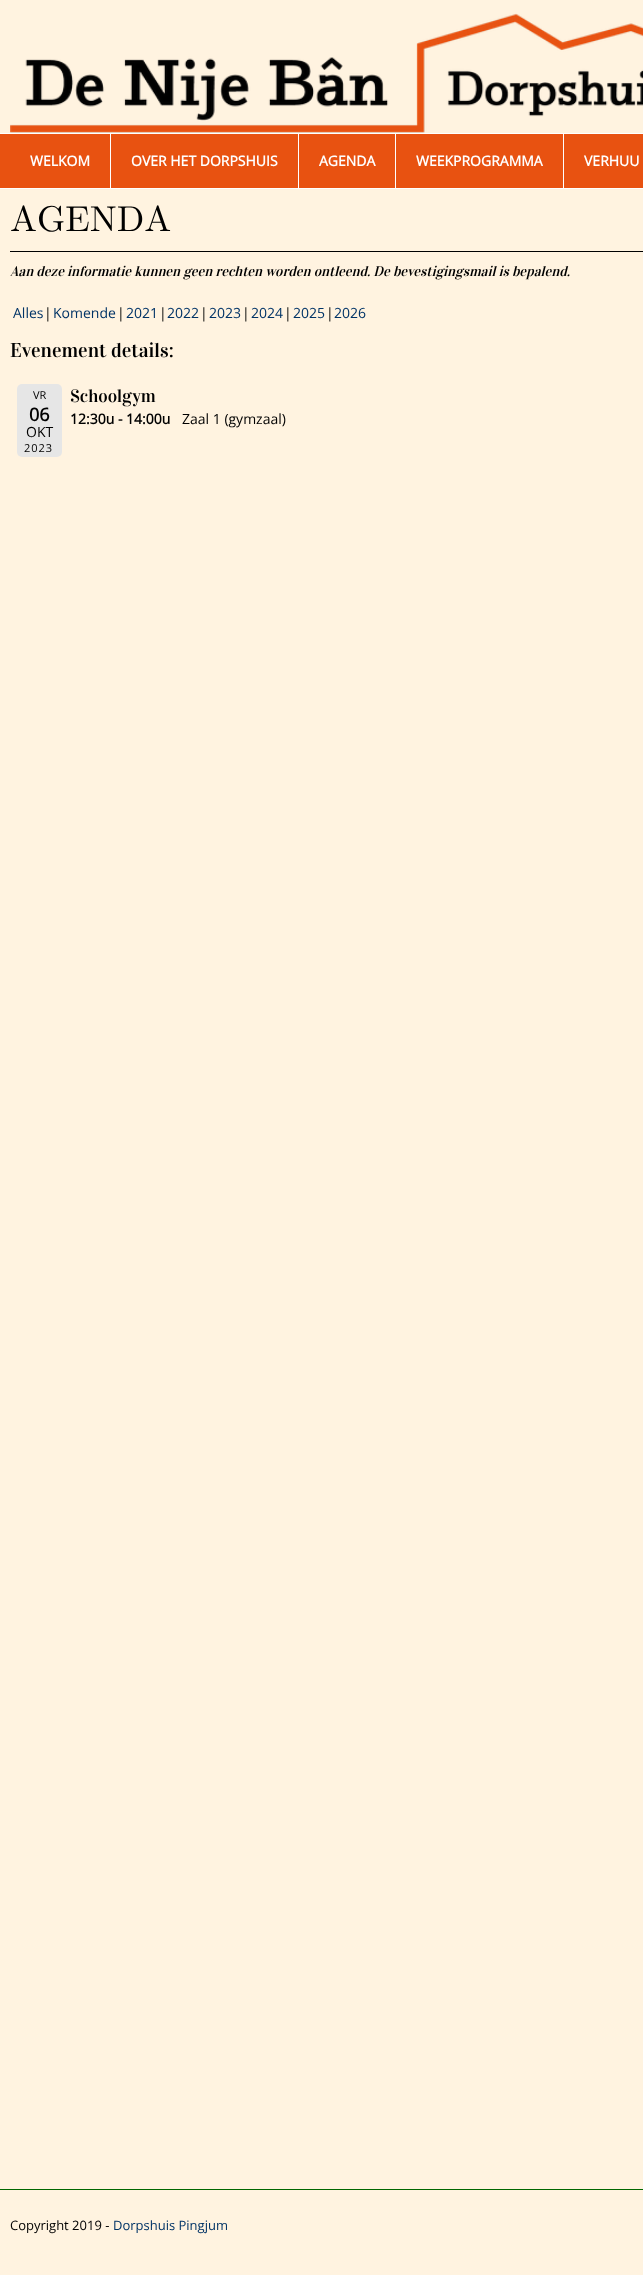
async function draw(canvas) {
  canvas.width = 643
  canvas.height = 2275
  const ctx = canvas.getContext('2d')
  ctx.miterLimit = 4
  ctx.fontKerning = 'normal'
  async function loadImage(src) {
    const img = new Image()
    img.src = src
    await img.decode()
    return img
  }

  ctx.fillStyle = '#fff3e0'
  ctx.fillRect(0, 0, 643, 2275)
  ctx.drawImage(await loadImage('image0.png'), 10, 13, 633, 120)
  ctx.fillStyle = '#e85211'
  ctx.fillRect(0, 134, 643, 54)
  ctx.fillStyle = '#fff'
  ctx.fillRect(0, 133, 643, 1)
  ctx.fillRect(0, 188, 643, 1)
  ctx.fillRect(110, 134, 1, 54)
  ctx.font = 'bold 14px Open Sans'
  ctx.fillText('WELKOM', 30, 166)
  ctx.fillRect(298, 134, 1, 54)
  ctx.fillText('OVER HET DORPSHUIS', 131, 166)
  ctx.fillRect(395, 134, 1, 54)
  ctx.fillText('AGENDA', 319, 166)
  ctx.fillRect(563, 134, 1, 54)
  ctx.fillText('WEEKPROGRAMMA', 416, 166)
  ctx.fillText('VERHUU', 584, 166)
  ctx.fillStyle = '#000'
  ctx.fillRect(10, 251, 633, 1)
  ctx.font = '36px Latin Modern Math'
  ctx.fillText('AGENDA', 10, 231)
  ctx.font = 'italic 14px Vidaloka'
  ctx.fillText('Aan deze informatie kunnen geen rechten worden ontleend. De bevestigingsmail is bepalend.', 10, 276)
  ctx.font = '14px Open Sans'
  ctx.fillStyle = '#036'
  ctx.fillText('Alles', 13, 318)
  ctx.fillStyle = '#000'
  ctx.fillText('|', 44, 318)
  ctx.fillStyle = '#036'
  ctx.fillText('Komende', 53, 318)
  ctx.fillStyle = '#000'
  ctx.fillText('|', 117, 318)
  ctx.fillStyle = '#036'
  ctx.fillText('2021', 126, 318)
  ctx.fillStyle = '#000'
  ctx.fillText('|', 159, 318)
  ctx.fillStyle = '#036'
  ctx.fillText('2022', 167, 318)
  ctx.fillStyle = '#000'
  ctx.fillText('|', 200, 318)
  ctx.fillStyle = '#036'
  ctx.fillText('2023', 209, 318)
  ctx.fillStyle = '#000'
  ctx.fillText('|', 242, 318)
  ctx.fillStyle = '#036'
  ctx.fillText('2024', 251, 318)
  ctx.fillStyle = '#000'
  ctx.fillText('|', 284, 318)
  ctx.fillStyle = '#036'
  ctx.fillText('2025', 293, 318)
  ctx.fillStyle = '#000'
  ctx.fillText('|', 326, 318)
  ctx.fillStyle = '#036'
  ctx.fillText('2026', 334, 318)
  ctx.font = '20px Vidaloka'
  ctx.fillStyle = '#000'
  ctx.fillText('Evenement details:', 10, 357)
  ctx.fillStyle = '#e6e6e6'
  ctx.beginPath()
  ctx.roundRect(17, 384, 45, 73, 5)
  ctx.fill()
  ctx.font = '11px Open Sans'
  ctx.fillStyle = '#000'
  ctx.fillText('VR', 33, 399)
  ctx.font = 'bold 18px Open Sans'
  ctx.fillText('06', 29, 421)
  ctx.font = '14px Open Sans'
  ctx.fillText('OKT', 26, 437)
  ctx.letterSpacing = '1px'
  ctx.font = '11px Open Sans'
  ctx.fillText('2023', 24, 452)
  ctx.letterSpacing = '0px'
  ctx.font = '18px Vidaloka'
  ctx.fillText('Schoolgym', 70, 402)
  ctx.font = 'bold 14px Open Sans'
  ctx.fillText('12:30u - 14:00u', 70, 424)
  ctx.font = '14px Open Sans'
  ctx.fillText('Zaal 1 (gymzaal)', 182, 424)
  ctx.fillStyle = '#060'
  ctx.fillRect(0, 2189, 643, 1)
  ctx.font = '13px Open Sans'
  ctx.fillStyle = '#000'
  ctx.fillText('Copyright 2019 -', 10, 2230)
  ctx.fillStyle = '#036'
  ctx.fillText('Dorpshuis Pingjum', 113, 2230)
}

draw(document.querySelector('canvas'))
